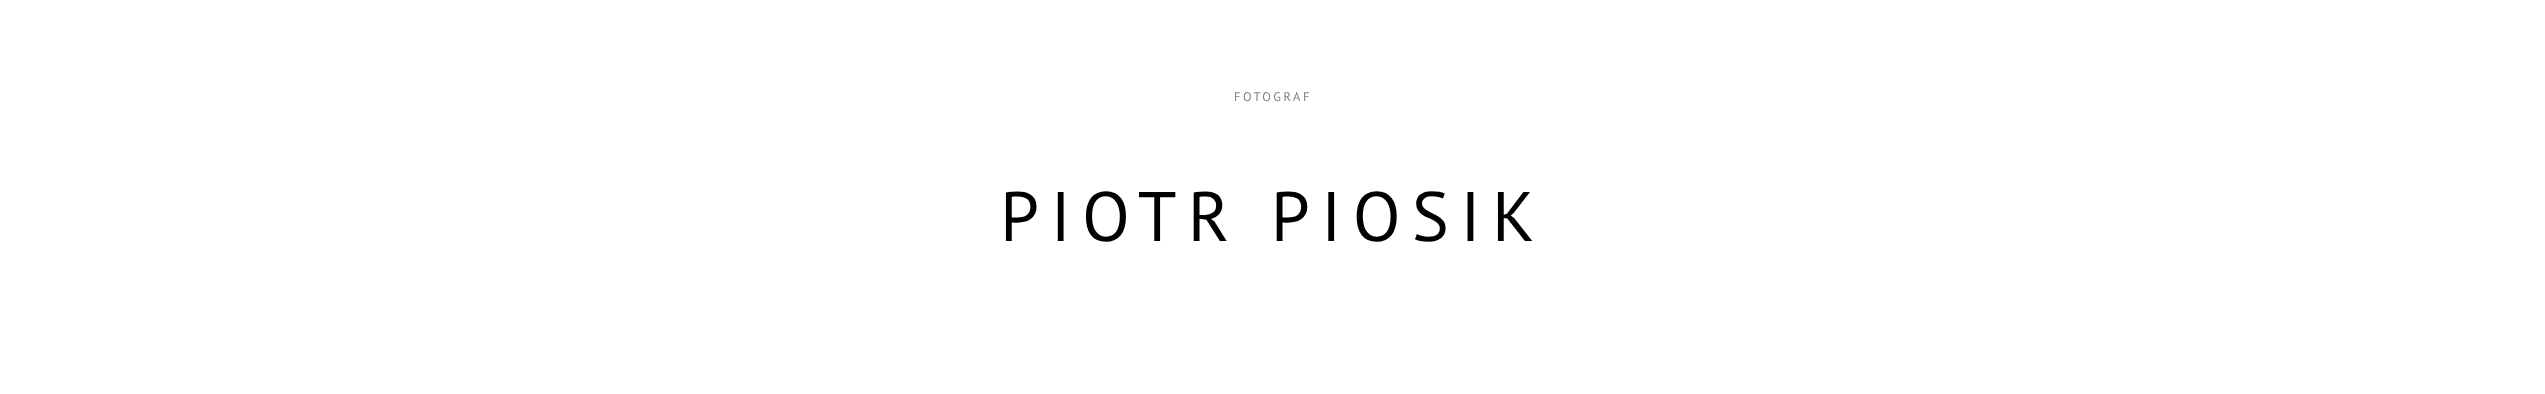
async function draw(canvas) {
  canvas.width = 2545
  canvas.height = 394
  const ctx = canvas.getContext('2d')
  ctx.miterLimit = 4
  ctx.fontKerning = 'normal'

  ctx.fillStyle = '#fff'
  ctx.fillRect(0, 0, 2545, 394)
  ctx.letterSpacing = '2.5px'
  ctx.font = '12.5px PT Sans'
  ctx.fillStyle = '#808080'
  ctx.fillText('FOTOGRAF', 1234, 101)
  ctx.letterSpacing = '11.25px'
  ctx.font = '70px PT Sans'
  ctx.fillStyle = '#000'
  ctx.fillText('PIOTR PIOSIK', 1000, 241)
}

draw(document.querySelector('canvas'))
